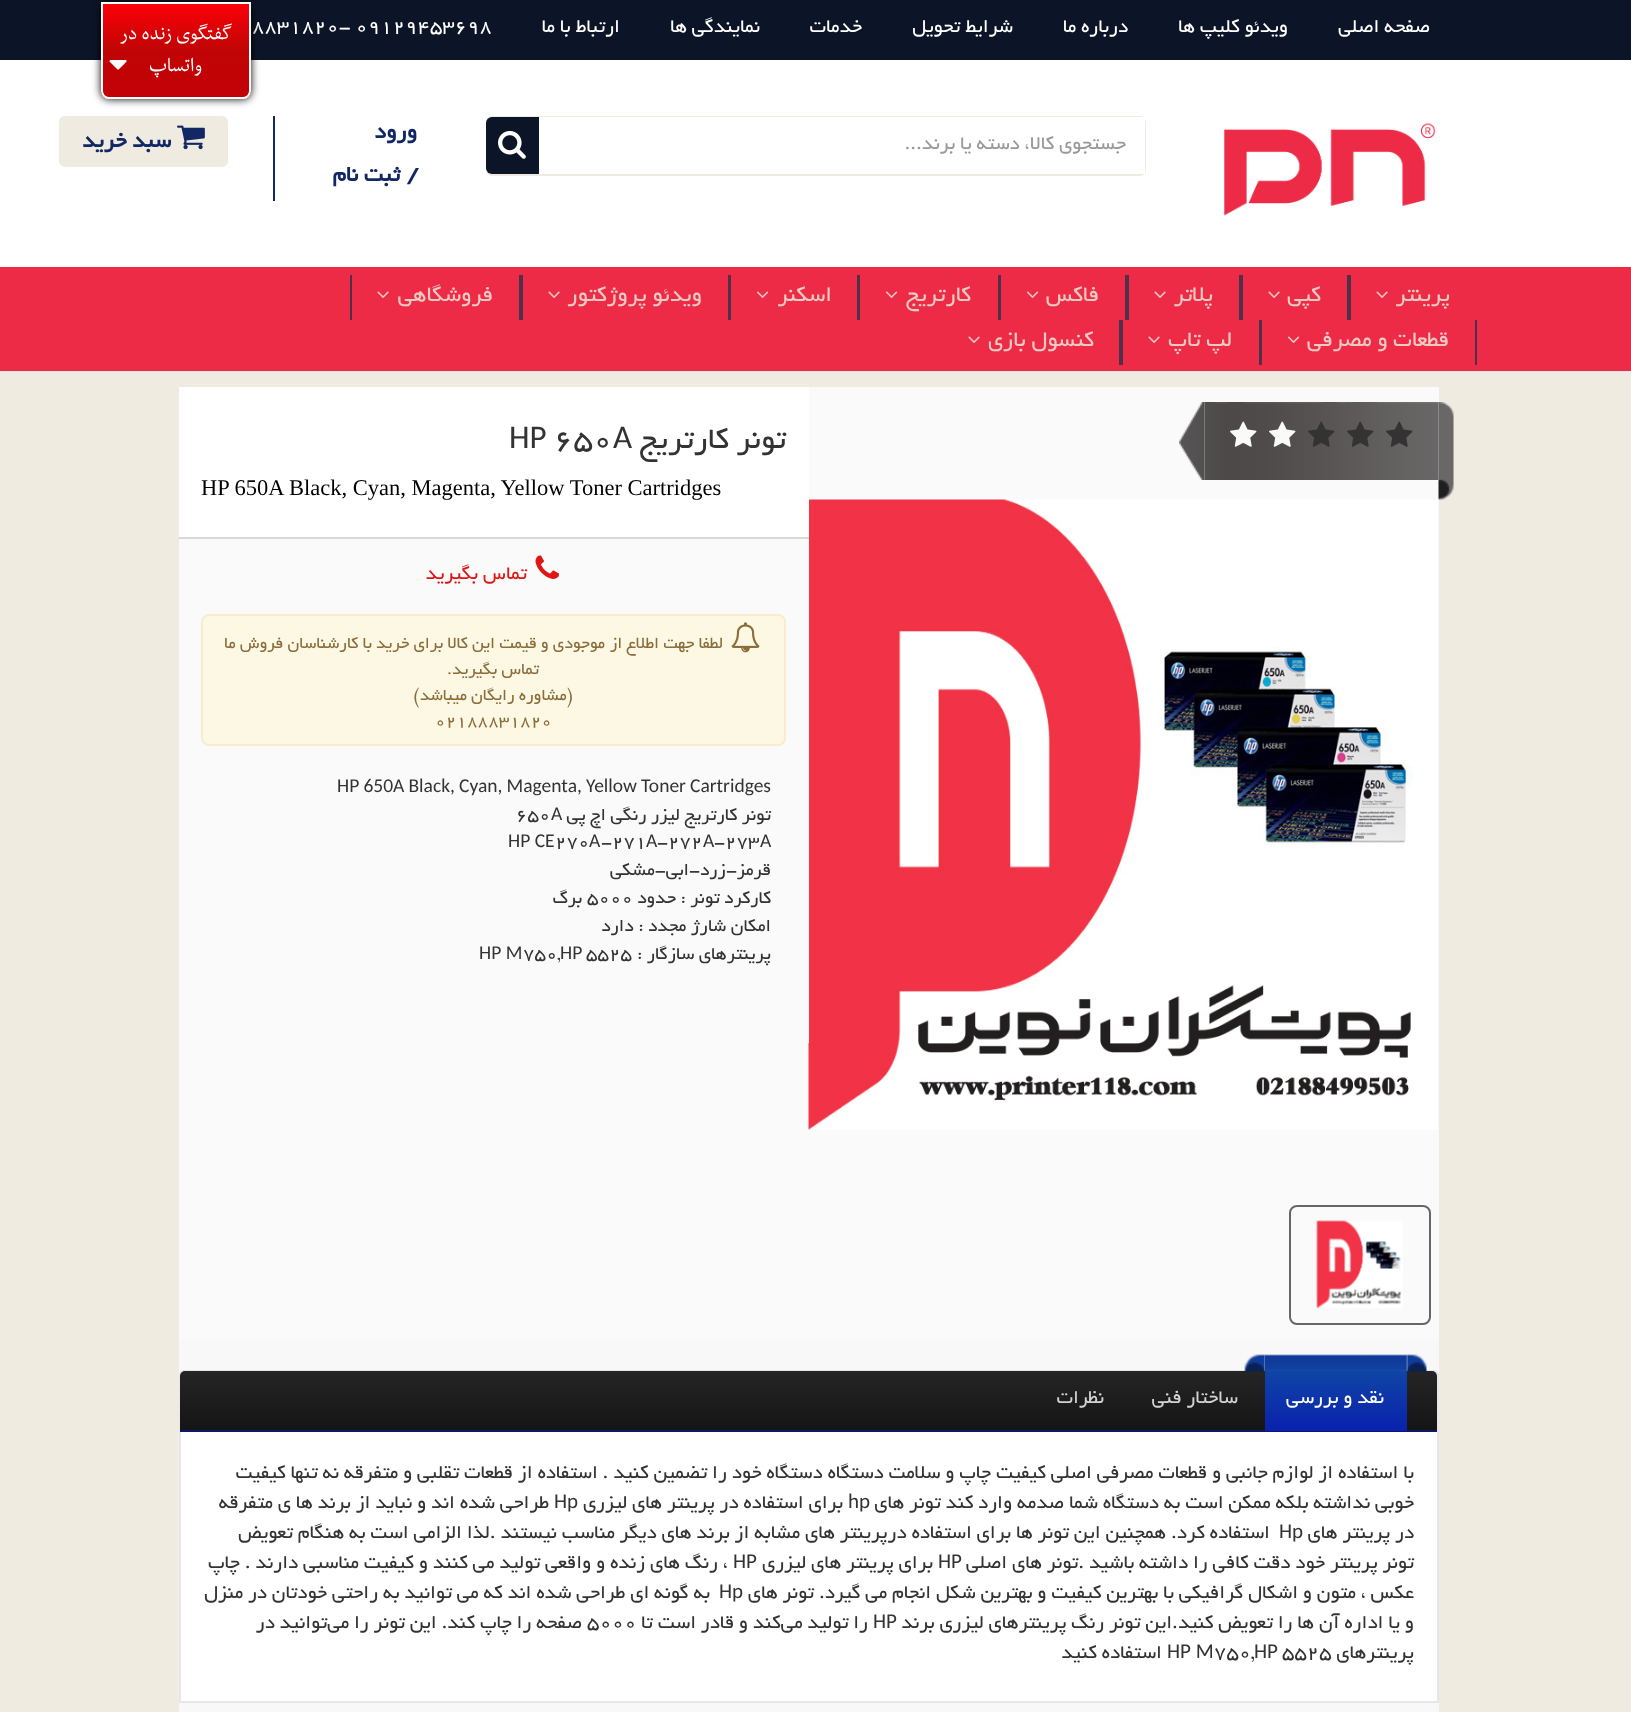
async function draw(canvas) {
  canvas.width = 1631
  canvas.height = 1712
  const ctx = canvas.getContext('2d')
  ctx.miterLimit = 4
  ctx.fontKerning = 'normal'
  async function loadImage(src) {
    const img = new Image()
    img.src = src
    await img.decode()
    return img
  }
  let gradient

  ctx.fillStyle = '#fff'
  ctx.fillRect(0, 0, 1631, 1712)
  ctx.fillStyle = '#0c1527'
  ctx.fillRect(0, 0, 1631, 60)
  ctx.direction = 'rtl'
  ctx.font = '21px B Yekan'
  ctx.fillStyle = '#fff'
  ctx.fillText('صفحه اصلی', 1430, 32)
  ctx.fillText('ویدئو کلیپ ها', 1288, 32)
  ctx.fillText('درباره ما', 1128, 32)
  ctx.fillText('شرایط تحویل', 1013, 32)
  ctx.fillText('خدمات', 862, 32)
  ctx.fillText('نمایندگی ها', 760, 32)
  ctx.fillText('ارتباط با ما', 620, 32)
  ctx.direction = 'ltr'
  ctx.fillText('8831820- 09129453698', 252, 32)
  ctx.drawImage(await loadImage('image0.png'), 1224, 123, 212, 93)
  ctx.beginPath()
  ctx.roundRect(487, 117, 658, 58, 5)
  ctx.strokeStyle = '#f0ebe1'
  ctx.lineWidth = 2
  ctx.stroke()
  ctx.fillRect(539, 117, 606, 57)
  ctx.direction = 'rtl'
  ctx.fillStyle = '#999'
  ctx.fillText('جستجوی کالا، دسته یا برند...', 1126, 149)
  ctx.fillStyle = '#0c1527'
  ctx.beginPath()
  ctx.roundRect(486, 117, 53, 57, [6, 0, 0, 6])
  ctx.fill()
  ctx.drawImage(await loadImage('image1.png'), 498, 130, 28, 29)
  ctx.fillStyle = '#122864'
  ctx.fillRect(273, 116, 2, 85)
  ctx.font = 'bold 24px B Yekan'
  ctx.fillText('ورود', 417, 138)
  ctx.direction = 'ltr'
  ctx.font = 'bold 27px B Yekan'
  ctx.fillText('/', 406, 181)
  ctx.direction = 'rtl'
  ctx.font = 'bold 24px B Yekan'
  ctx.fillText('ثبت نام', 400, 181)
  ctx.fillStyle = '#f0ebe1'
  ctx.beginPath()
  ctx.roundRect(60, 117, 167, 49, 5)
  ctx.fill()
  ctx.stroke()
  ctx.drawImage(await loadImage('image2.png'), 177, 125, 28, 25)
  ctx.fillStyle = '#122864'
  ctx.fillText('سبد خرید', 171, 147)
  ctx.fillStyle = '#ed2b47'
  ctx.fillRect(0, 267, 1631, 104)
  ctx.fillStyle = '#e3e4e5'
  ctx.fillRect(0, 371, 1631, 1)
  ctx.fillStyle = '#4e3049'
  ctx.fillRect(1347, 275, 4, 45)
  ctx.font = '24px B Yekan'
  ctx.fillStyle = '#eecac2'
  ctx.fillText('پرینتر', 1450, 301)
  ctx.drawImage(await loadImage('image3.png'), 1376, 291, 12, 7)
  ctx.fillStyle = '#4e3049'
  ctx.fillRect(1239, 275, 4, 45)
  ctx.fillStyle = '#eecac2'
  ctx.fillText('کپی', 1321, 301)
  ctx.drawImage(await loadImage('image3.png'), 1268, 291, 12, 7)
  ctx.fillStyle = '#4e3049'
  ctx.fillRect(1125, 275, 4, 45)
  ctx.fillStyle = '#eecac2'
  ctx.fillText('پلاتر', 1213, 301)
  ctx.drawImage(await loadImage('image3.png'), 1154, 291, 12, 7)
  ctx.fillStyle = '#4e3049'
  ctx.fillRect(998, 275, 3, 45)
  ctx.fillStyle = '#eecac2'
  ctx.fillText('فاکس', 1099, 301)
  ctx.drawImage(await loadImage('image4.png'), 1026, 291, 13, 7)
  ctx.fillStyle = '#4e3049'
  ctx.fillRect(857, 275, 3, 45)
  ctx.fillStyle = '#eecac2'
  ctx.fillText('کارتریج', 971, 301)
  ctx.drawImage(await loadImage('image4.png'), 885, 291, 13, 7)
  ctx.fillStyle = '#4e3049'
  ctx.fillRect(728, 275, 3, 45)
  ctx.fillStyle = '#eecac2'
  ctx.fillText('اسکنر', 832, 301)
  ctx.drawImage(await loadImage('image4.png'), 756, 291, 13, 7)
  ctx.fillStyle = '#4e3049'
  ctx.fillRect(519, 275, 4, 45)
  ctx.fillStyle = '#eecac2'
  ctx.fillText('ویدئو پروژکتور', 702, 301)
  ctx.drawImage(await loadImage('image3.png'), 548, 291, 12, 7)
  ctx.fillStyle = '#4e3049'
  ctx.fillRect(350, 275, 2, 45)
  ctx.fillStyle = '#eecac2'
  ctx.fillText('فروشگاهی', 493, 301)
  ctx.drawImage(await loadImage('image3.png'), 377, 291, 12, 7)
  ctx.fillStyle = '#4e3049'
  ctx.fillRect(1475, 320, 2, 45)
  ctx.fillRect(1259, 320, 3, 45)
  ctx.fillStyle = '#eecac2'
  ctx.fillText('قطعات و مصرفی', 1449, 346)
  ctx.drawImage(await loadImage('image4.png'), 1287, 336, 13, 7)
  ctx.fillStyle = '#4e3049'
  ctx.fillRect(1119, 320, 4, 45)
  ctx.fillStyle = '#eecac2'
  ctx.fillText('لپ تاپ', 1232, 346)
  ctx.drawImage(await loadImage('image3.png'), 1148, 336, 12, 7)
  ctx.fillText('کنسول بازی', 1094, 346)
  ctx.drawImage(await loadImage('image3.png'), 968, 336, 12, 7)
  ctx.fillStyle = '#f0ebe1'
  ctx.fillRect(0, 372, 1631, 1340)
  ctx.fillStyle = '#fafafa'
  ctx.fillRect(179, 387, 1260, 953)
  ctx.drawImage(await loadImage('image5.png'), 1438, 402, 16, 98)
  ctx.drawImage(await loadImage('image6.png'), 1204, 402, 235, 78)
  ctx.drawImage(await loadImage('image7.png'), 1386, 421, 27, 26)
  ctx.drawImage(await loadImage('image8.png'), 1347, 421, 27, 26)
  ctx.drawImage(await loadImage('image9.png'), 1308, 421, 27, 26)
  ctx.drawImage(await loadImage('image10.png'), 1269, 421, 27, 26)
  ctx.drawImage(await loadImage('image11.png'), 1230, 421, 27, 26)
  ctx.drawImage(await loadImage('image12.png'), 1179, 402, 26, 78)
  ctx.drawImage(await loadImage('image13.png'), 808, 499, 630, 631)
  ctx.beginPath()
  ctx.roundRect(1290, 1206, 140, 118, 7)
  ctx.strokeStyle = '#666'
  ctx.stroke()
  ctx.drawImage(await loadImage('image14.png'), 1316, 1220, 87, 89)
  ctx.fillStyle = '#fff'
  ctx.fillRect(179, 387, 630, 150)
  ctx.font = '33px B Yekan'
  ctx.fillStyle = '#333'
  ctx.fillText('تونر کارتریج', 786, 448)
  ctx.direction = 'ltr'
  ctx.font = '33px Carlito'
  ctx.fillText('A', 613, 448)
  ctx.font = '33px B Yekan'
  ctx.fillText('650', 554, 448)
  ctx.font = '33px Carlito'
  ctx.fillText('HP', 509, 448)
  ctx.font = '22.5px Liberation Serif'
  ctx.fillStyle = '#000'
  ctx.fillText('HP 650A Black, Cyan, Magenta, Yellow Toner Cartridges', 201, 495)
  ctx.fillStyle = '#f8f8f8'
  ctx.fillRect(808, 539, 1, 504)
  ctx.fillStyle = '#d8d8d8'
  ctx.fillRect(179, 537, 630, 2)
  ctx.drawImage(await loadImage('image15.png'), 535, 555, 24, 24)
  ctx.direction = 'rtl'
  ctx.font = '21px B Yekan'
  ctx.fillStyle = '#e01616'
  ctx.fillText('تماس بگیرید', 527, 579)
  ctx.fillStyle = '#fcf8e3'
  ctx.beginPath()
  ctx.roundRect(202, 615, 583, 130, 7)
  ctx.fill()
  ctx.strokeStyle = '#faebcc'
  ctx.stroke()
  ctx.drawImage(await loadImage('image16.png'), 731, 622, 29, 31)
  ctx.font = '18px B Yekan'
  ctx.fillStyle = '#8a6d3b'
  ctx.fillText('لطفا جهت اطلاع از', 723, 648)
  ctx.fillText('موجودی و قیمت این کالا برای خرید با کارشناسان فروش ما', 605, 648)
  ctx.fillText('تماس بگیرید.', 539, 674)
  ctx.fillText('(مشاوره رایگان میباشد)', 573, 700)
  ctx.direction = 'ltr'
  ctx.fillText('02188831820', 435, 726)
  ctx.wordSpacing = '-0.25px'
  ctx.font = '19.5px Carlito'
  ctx.fillStyle = '#333'
  ctx.fillText('HP 650A Black, Cyan, Magenta, Yellow Toner Cartridges', 337, 792)
  ctx.wordSpacing = '0px'
  ctx.direction = 'rtl'
  ctx.font = '19.5px B Yekan'
  ctx.fillText('تونر کارتریج لیزر رنگی اچ پی', 771, 820)
  ctx.direction = 'ltr'
  ctx.font = '19.5px Carlito'
  ctx.fillText('A', 551, 820)
  ctx.font = '19.5px B Yekan'
  ctx.fillText('650', 516, 820)
  ctx.fillText('-273', 714, 847)
  ctx.font = '19.5px Carlito'
  ctx.fillText('A', 760, 847)
  ctx.fillText('A', 703, 847)
  ctx.font = '19.5px B Yekan'
  ctx.fillText('-272', 657, 847)
  ctx.font = '19.5px Carlito'
  ctx.fillText('A', 646, 847)
  ctx.font = '19.5px B Yekan'
  ctx.fillText('-271', 601, 847)
  ctx.font = '19.5px Carlito'
  ctx.fillText('A', 589, 847)
  ctx.font = '19.5px B Yekan'
  ctx.fillText('270', 555, 847)
  ctx.font = '19.5px Carlito'
  ctx.fillText('HP CE', 508, 847)
  ctx.direction = 'rtl'
  ctx.font = '19.5px B Yekan'
  ctx.fillText('قرمز-زرد-ابی-مشکی', 771, 875)
  ctx.fillText('کارکرد تونر : حدود', 771, 903)
  ctx.direction = 'ltr'
  ctx.fillText('5000', 587, 903)
  ctx.direction = 'rtl'
  ctx.fillText('برگ', 582, 903)
  ctx.fillText('امکان شارژ مجدد : دارد', 771, 931)
  ctx.fillText('پرینترهای سازگار :', 771, 959)
  ctx.direction = 'ltr'
  ctx.fillText('5525', 586, 959)
  ctx.font = '19.5px Carlito'
  ctx.fillText('HP', 560, 959)
  ctx.font = '19.5px B Yekan'
  ctx.fillText('750,', 523, 959)
  ctx.font = '19.5px Carlito'
  ctx.fillText('HP M', 479, 959)
  ctx.fillStyle = '#f8f8f8'
  ctx.fillRect(179, 1340, 1260, 372)
  ctx.fillStyle = '#fff'
  ctx.beginPath()
  ctx.roundRect(180, 1371, 1258, 331, [4, 4, 0, 0])
  ctx.fill()
  ctx.strokeStyle = '#e7e7e7'
  ctx.stroke()
  gradient = ctx.createLinearGradient(809, 1371, 809, 1430)
  gradient.addColorStop(0, '#252525')
  gradient.addColorStop(1, '#151515')
  ctx.fillStyle = gradient
  ctx.beginPath()
  ctx.roundRect(180, 1371, 1257, 59, [5, 5, 0, 0])
  ctx.fill()
  ctx.fillStyle = '#0b1968'
  ctx.fillRect(180, 1430, 1257, 2)
  ctx.drawImage(await loadImage('image17.png'), 1264, 1354, 143, 18)
  ctx.drawImage(await loadImage('image18.png'), 1406, 1354, 21, 18)
  ctx.drawImage(await loadImage('image19.png'), 1244, 1354, 21, 18)
  gradient = ctx.createLinearGradient(1336, 1371, 1336, 1431)
  gradient.addColorStop(0, '#0f45a5')
  gradient.addColorStop(1, '#0a21ad')
  ctx.fillStyle = gradient
  ctx.fillRect(1265, 1371, 142, 60)
  ctx.direction = 'rtl'
  ctx.font = '21px B Yekan'
  ctx.fillStyle = '#fff'
  ctx.fillText('نقد و بررسی', 1384, 1403)
  ctx.fillStyle = '#d3d1d1'
  ctx.fillText('ساختار فنی', 1238, 1403)
  ctx.fillText('نظرات', 1104, 1403)
  ctx.fillStyle = '#333'
  ctx.fillText('با استفاده از لوازم جانبی و قطعات مصرفی اصلی کیفیت چاپ و سلامت دستگاه دستگاه خود را تضمین کنید . استفاده از قطعات تقلبی و متفرقه نه تنها کیفیت', 1414, 1478)
  ctx.fillText('خوبی نداشته بلکه ممکن است به دستگاه شما صدمه وارد کند تونر های', 1414, 1508)
  ctx.direction = 'ltr'
  ctx.font = '21px Carlito'
  ctx.fillText('hp', 848, 1508)
  ctx.direction = 'rtl'
  ctx.font = '21px B Yekan'
  ctx.fillText('برای استفاده در پرینتر های لیزری', 843, 1508)
  ctx.direction = 'ltr'
  ctx.font = '21px Carlito'
  ctx.fillText('Hp', 554, 1508)
  ctx.direction = 'rtl'
  ctx.font = '21px B Yekan'
  ctx.fillText('طراحی شده اند و نباید از برند ها ی متفرقه', 549, 1508)
  ctx.fillText('در پرینتر های', 1414, 1538)
  ctx.direction = 'ltr'
  ctx.font = '21px Carlito'
  ctx.fillText('Hp', 1279, 1538)
  ctx.direction = 'rtl'
  ctx.font = '21px B Yekan'
  ctx.fillText('استفاده کرد. همچنین این تونر ها برای استفاده درپرینتر های مشابه از برند های دیگر مناسب نیستند .لذا الزامی است به هنگام تعویض', 1270, 1538)
  ctx.fillText('تونر پرینتر خود دقت کافی را داشته باشید .تونر های اصلی', 1414, 1568)
  ctx.direction = 'ltr'
  ctx.font = '21px Carlito'
  ctx.fillText('HP', 938, 1568)
  ctx.direction = 'rtl'
  ctx.font = '21px B Yekan'
  ctx.fillText('برای پرینتر های لیزری', 933, 1568)
  ctx.direction = 'ltr'
  ctx.font = '21px Carlito'
  ctx.fillText('HP', 733, 1568)
  ctx.direction = 'rtl'
  ctx.font = '21px B Yekan'
  ctx.fillText('، رنگ های زنده و واقعی تولید می کنند و کیفیت مناسبی دارند . چاپ', 728, 1568)
  ctx.fillText('عکس ، متون و اشکال گرافیکی با بهترین کیفیت و بهترین شکل انجام می گیرد. تونر های', 1414, 1598)
  ctx.direction = 'ltr'
  ctx.font = '21px Carlito'
  ctx.fillText('Hp', 719, 1598)
  ctx.direction = 'rtl'
  ctx.font = '21px B Yekan'
  ctx.fillText('به گونه ای طراحی شده اند که می توانید به راحتی خودتان در منزل', 710, 1598)
  ctx.fillText('و یا اداره آن ها را تعویض کنید.این تونر رنگ پرینترهای لیزری برند', 1414, 1628)
  ctx.direction = 'ltr'
  ctx.font = '21px Carlito'
  ctx.fillText('HP', 873, 1628)
  ctx.direction = 'rtl'
  ctx.font = '21px B Yekan'
  ctx.fillText('را تولید می‌کند و قادر است تا', 868, 1628)
  ctx.direction = 'ltr'
  ctx.fillText('5000', 587, 1628)
  ctx.direction = 'rtl'
  ctx.fillText('صفحه را چاپ کند. این تونر را می‌توانید در', 582, 1628)
  ctx.fillText('پرینترهای', 1414, 1658)
  ctx.direction = 'ltr'
  ctx.fillText('5525', 1282, 1658)
  ctx.font = '21px Carlito'
  ctx.fillText('HP', 1254, 1658)
  ctx.font = '21px B Yekan'
  ctx.fillText('750,', 1214, 1658)
  ctx.font = '21px Carlito'
  ctx.fillText('HP M', 1167, 1658)
  ctx.direction = 'rtl'
  ctx.font = '21px B Yekan'
  ctx.fillText('استفاده کنید', 1162, 1658)
  ctx.fillStyle = '#000'
  ctx.filter = 'blur(4px)'
  ctx.beginPath()
  ctx.roundRect(101, 2, 150, 97, 8)
  ctx.fill()
  ctx.filter = 'none'
  ctx.save()
  ctx.beginPath()
  ctx.roundRect(101, 2, 150, 97, [0, 0, 8, 8])
  ctx.clip()
  gradient = ctx.createLinearGradient(176, 3, 176, 98)
  gradient.addColorStop(0, '#fd0009')
  gradient.addColorStop(0.5, '#c00505')
  gradient.addColorStop(1, '#c30007')
  ctx.fillStyle = gradient
  ctx.fillRect(101, 4, 150, 94)
  ctx.restore()
  ctx.beginPath()
  ctx.roundRect(102, 3, 148, 95, [0, 0, 7, 7])
  ctx.strokeStyle = '#fff'
  ctx.stroke()
  ctx.font = '22.5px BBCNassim'
  ctx.fillStyle = '#fff'
  ctx.fillText('گفتگوی زنده در', 232, 39)
  ctx.fillText('واتساپ', 202, 71)
  ctx.drawImage(await loadImage('image20.png'), 109, 60, 18, 10)
}

draw(document.querySelector('canvas'))
